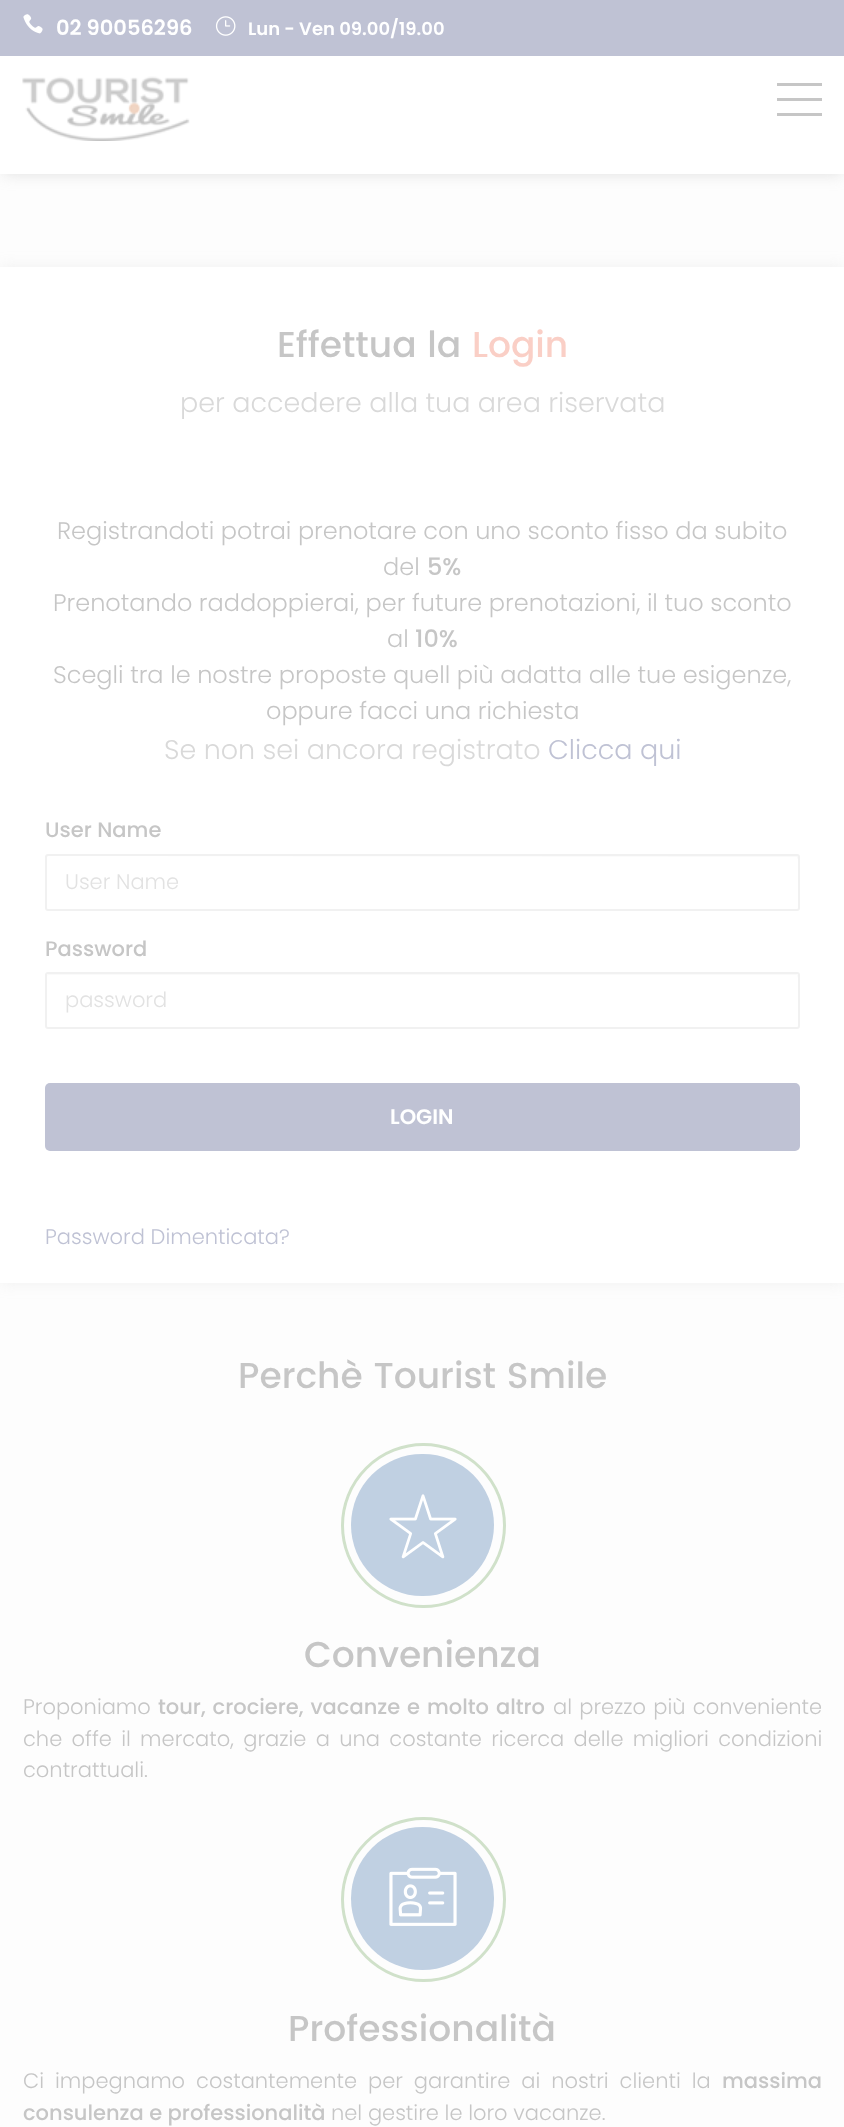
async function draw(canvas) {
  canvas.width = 844
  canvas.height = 2127
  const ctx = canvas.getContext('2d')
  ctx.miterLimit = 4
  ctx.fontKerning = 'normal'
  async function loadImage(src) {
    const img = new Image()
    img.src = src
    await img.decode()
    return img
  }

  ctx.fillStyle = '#fdfdfd'
  ctx.fillRect(0, 0, 844, 2127)
  ctx.fillStyle = '#b8b8b869'
  ctx.filter = 'blur(7.5px)'
  ctx.beginPath()
  ctx.rect(3, 6, 839, 168)
  ctx.fill()
  ctx.filter = 'none'
  ctx.fillStyle = '#fff'
  ctx.fillRect(0, 56, 844, 118)
  ctx.fillStyle = '#bfc2d4'
  ctx.fillRect(0, 0, 844, 56)
  ctx.drawImage(await loadImage('image0.png'), 23, 14, 20, 20)
  ctx.font = '600 21px Poppins'
  ctx.fillStyle = '#fff'
  ctx.fillText('02 90056296', 56, 35)
  ctx.drawImage(await loadImage('image1.png'), 215, 16, 21, 20)
  ctx.font = '600 18px Poppins'
  ctx.fillText('Lun - Ven 09.00/19.00', 248, 35)
  ctx.drawImage(await loadImage('image2.png'), 22, 76, 168, 65)
  ctx.fillStyle = '#c6c6c6'
  ctx.fillRect(777, 98, 45, 3)
  ctx.fillRect(777, 83, 45, 3)
  ctx.fillRect(777, 113, 45, 3)
  ctx.fillStyle = '#b8b8b833'
  ctx.filter = 'blur(7.5px)'
  ctx.beginPath()
  ctx.rect(0, 267, 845, 1016)
  ctx.fill()
  ctx.filter = 'none'
  ctx.fillStyle = '#fff'
  ctx.fillRect(0, 267, 844, 1016)
  ctx.font = '500 36px Poppins'
  ctx.fillStyle = '#c6c6c6'
  ctx.fillText('Effettua la', 277, 357)
  ctx.fillStyle = '#facfc6'
  ctx.fillText('Login', 472, 357)
  ctx.font = '300 27px Poppins'
  ctx.fillStyle = '#d9d9d9'
  ctx.fillText('per accedere alla tua area riservata', 180, 412)
  ctx.font = '300 24px Poppins'
  ctx.fillStyle = '#c6c6c6'
  ctx.fillText('Registrandoti potrai prenotare con uno sconto fisso da subito', 57, 539)
  ctx.fillText('del', 383, 575)
  ctx.font = '500 24px "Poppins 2"'
  ctx.fillText('5%', 427, 575)
  ctx.font = '300 24px Poppins'
  ctx.fillText('Prenotando raddoppierai, per future prenotazioni, il tuo sconto', 53, 611)
  ctx.fillText('al', 387, 647)
  ctx.font = '500 24px "Poppins 2"'
  ctx.fillText('10%', 415, 647)
  ctx.font = '300 24px Poppins'
  ctx.fillText('Scegli tra le nostre proposte quell più adatta alle tue esigenze,', 53, 683)
  ctx.fillText('oppure facci una richiesta', 266, 719)
  ctx.font = '300 27px Poppins'
  ctx.fillStyle = '#d9d9d9'
  ctx.fillText('Se non sei ancora registrato', 164, 759)
  ctx.fillStyle = '#bfc2d4'
  ctx.fillText('Clicca qui', 548, 759)
  ctx.font = '500 21px "Poppins 2"'
  ctx.fillStyle = '#c6c6c6'
  ctx.fillText('User Name', 45, 837)
  ctx.fillStyle = '#fafafa'
  ctx.beginPath()
  ctx.moveTo(48, 856)
  ctx.lineTo(797, 857)
  ctx.lineTo(798, 860)
  ctx.bezierCurveTo(798, 859, 799, 855, 796, 855)
  ctx.lineTo(48, 855)
  ctx.bezierCurveTo(48, 855, 47, 856, 47, 857)
  ctx.closePath()
  ctx.fill()
  ctx.beginPath()
  ctx.roundRect(46, 855, 753, 55, 2)
  ctx.strokeStyle = '#f1f1f1'
  ctx.lineWidth = 2
  ctx.stroke()
  ctx.font = '300 21px Poppins'
  ctx.fillStyle = '#e2e2e2'
  ctx.fillText('User Name', 65, 889)
  ctx.font = '500 21px "Poppins 2"'
  ctx.fillStyle = '#c6c6c6'
  ctx.fillText('Password', 45, 956)
  ctx.fillStyle = '#fafafa'
  ctx.beginPath()
  ctx.moveTo(48, 975)
  ctx.lineTo(797, 975)
  ctx.lineTo(798, 978)
  ctx.lineTo(798, 976)
  ctx.bezierCurveTo(798, 975, 797, 974, 796, 974)
  ctx.lineTo(48, 974)
  ctx.bezierCurveTo(48, 974, 47, 975, 47, 976)
  ctx.closePath()
  ctx.fill()
  ctx.beginPath()
  ctx.roundRect(46, 973, 753, 55, 2)
  ctx.stroke()
  ctx.font = '300 21px Poppins'
  ctx.fillStyle = '#e2e2e2'
  ctx.fillText('password', 65, 1007)
  ctx.fillStyle = '#bfc2d4'
  ctx.beginPath()
  ctx.roundRect(45, 1083, 755, 68, 5)
  ctx.fill()
  ctx.font = '600 21px Poppins'
  ctx.fillStyle = '#fff'
  ctx.fillText('LOGIN', 390, 1124)
  ctx.font = '300 21px Poppins'
  ctx.fillStyle = '#bfc2d4'
  ctx.fillText('Password Dimenticata?', 45, 1244)
  ctx.font = '500 36px Poppins'
  ctx.fillStyle = '#c6c6c6'
  ctx.fillText('Perchè Tourist Smile', 238, 1388)
  ctx.beginPath()
  ctx.arc(423.5, 1525.5, 81, 0, 2 * Math.PI)
  ctx.strokeStyle = '#d0e1ca'
  ctx.lineWidth = 3
  ctx.stroke()
  ctx.fillStyle = '#c0d0e2'
  ctx.beginPath()
  ctx.roundRect(351, 1454, 143, 142, 71)
  ctx.fill()
  ctx.drawImage(await loadImage('image3.png'), 389, 1494, 68, 65)
  ctx.fillStyle = '#c6c6c6'
  ctx.fillText('Convenienza', 304, 1667)
  ctx.font = '300 21px Poppins'
  ctx.fillText('Proponiamo', 23, 1714)
  ctx.wordSpacing = '1.5px'
  ctx.font = '500 21px "Poppins 2"'
  ctx.fillText('tour, crociere, vacanze e molto altro', 158, 1714)
  ctx.font = '300 21px Poppins'
  ctx.fillText('al prezzo più conveniente', 553, 1714)
  ctx.wordSpacing = '3.6px'
  ctx.fillText('che offe il mercato, grazie a una costante ricerca delle migliori condizioni', 23, 1746)
  ctx.wordSpacing = '0px'
  ctx.fillText('contrattuali.', 23, 1777)
  ctx.beginPath()
  ctx.arc(423.5, 1899.5, 81, 0, 2 * Math.PI)
  ctx.stroke()
  ctx.fillStyle = '#c0d0e2'
  ctx.beginPath()
  ctx.arc(422.5, 1898.5, 71.5, 0, 2 * Math.PI)
  ctx.fill()
  ctx.drawImage(await loadImage('image4.png'), 389, 1867, 68, 59)
  ctx.font = '500 36px Poppins'
  ctx.fillStyle = '#c6c6c6'
  ctx.fillText('Professionalità', 288, 2041)
  ctx.wordSpacing = '5.25px'
  ctx.font = '300 21px Poppins'
  ctx.fillText('Ci impegnamo costantemente per garantire ai nostri clienti la', 23, 2088)
  ctx.wordSpacing = '0px'
  ctx.font = '500 21px "Poppins 2"'
  ctx.fillText('massima', 722, 2088)
  ctx.fillText('consulenza e professionalità', 23, 2120)
  ctx.font = '300 21px Poppins'
  ctx.fillText('nel gestire le loro vacanze.', 331, 2120)
}

draw(document.querySelector('canvas'))
